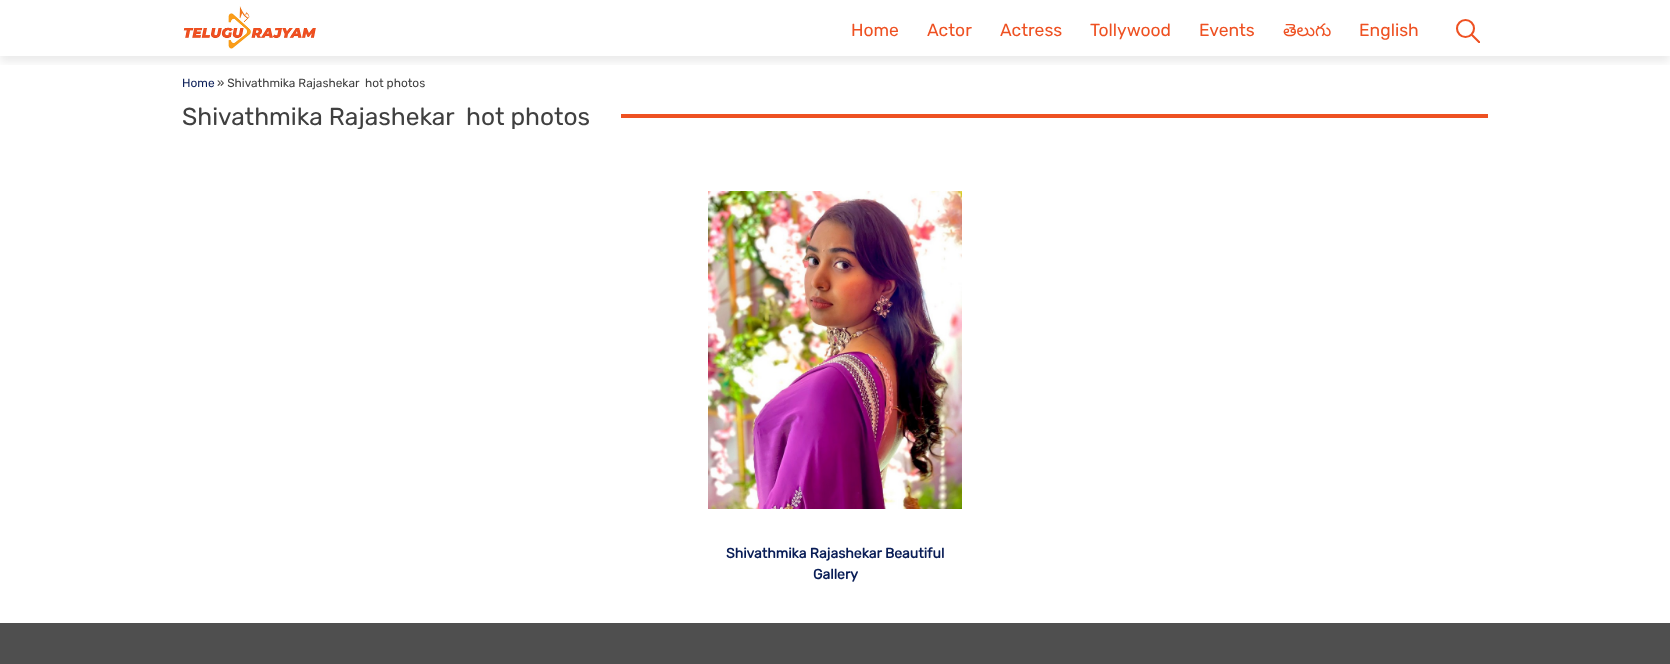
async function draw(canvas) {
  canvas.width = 1670
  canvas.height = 664
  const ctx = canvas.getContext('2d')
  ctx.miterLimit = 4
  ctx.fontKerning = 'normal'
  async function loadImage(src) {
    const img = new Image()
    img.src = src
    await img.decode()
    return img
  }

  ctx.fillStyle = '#fff'
  ctx.fillRect(0, 0, 1670, 664)
  ctx.save()
  ctx.beginPath()
  ctx.rect(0, 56, 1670, 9)
  ctx.clip()
  ctx.fillStyle = '#00000014'
  ctx.filter = 'blur(4px)'
  ctx.beginPath()
  ctx.rect(0, 11, 1670, 51)
  ctx.fill()
  ctx.filter = 'none'
  ctx.restore()
  ctx.drawImage(await loadImage('image0.png'), 183, 6, 133, 43)
  ctx.font = '300 17.5px Rubik'
  ctx.fillStyle = '#ee5122'
  ctx.fillText('Home', 851, 36)
  ctx.fillText('Actor', 927, 36)
  ctx.fillText('Actress', 1000, 36)
  ctx.fillText('Tollywood', 1090, 36)
  ctx.fillText('Events', 1199, 36)
  ctx.font = '17.5px Noto Sans Telugu'
  ctx.fillText('తెలుగు', 1283, 36)
  ctx.font = '300 17.5px Rubik'
  ctx.fillText('English', 1359, 36)
  ctx.save()
  ctx.beginPath()
  ctx.rect(1455, 18, 25, 25)
  ctx.clip()
  ctx.beginPath()
  ctx.moveTo(1472.5, 35.5)
  ctx.lineTo(1480, 43)
  ctx.strokeStyle = '#ee5122'
  ctx.lineWidth = 2.1
  ctx.lineCap = 'square'
  ctx.stroke()
  ctx.restore()
  ctx.beginPath()
  ctx.arc(1465.5, 28.5, 8.5, 0, 2 * Math.PI)
  ctx.strokeStyle = '#ee5122'
  ctx.lineWidth = 2.1
  ctx.stroke()
  ctx.font = '300 11.9px Rubik'
  ctx.fillStyle = '#081c56'
  ctx.fillText('Home', 182, 87)
  ctx.fillStyle = '#404040'
  ctx.fillText('» Shivathmika Rajashekar  hot photos', 217, 87)
  ctx.save()
  ctx.beginPath()
  ctx.rect(182, 105, 1306, 24)
  ctx.clip()
  ctx.font = '300 24.5px Rubik'
  ctx.fillText('Shivathmika Rajashekar  hot photos', 182, 125)
  ctx.restore()
  ctx.fillStyle = '#ee5122'
  ctx.fillRect(621, 114, 867, 4)
  ctx.drawImage(await loadImage('image1.png'), 708, 191, 254, 318)
  ctx.font = 'bold 14px Rubik'
  ctx.fillStyle = '#081c56'
  ctx.fillText('Shivathmika Rajashekar Beautiful', 726, 558)
  ctx.fillText('Gallery', 813, 579)
  ctx.fillStyle = '#4f4f4f'
  ctx.fillRect(0, 623, 1670, 41)
}

draw(document.querySelector('canvas'))
